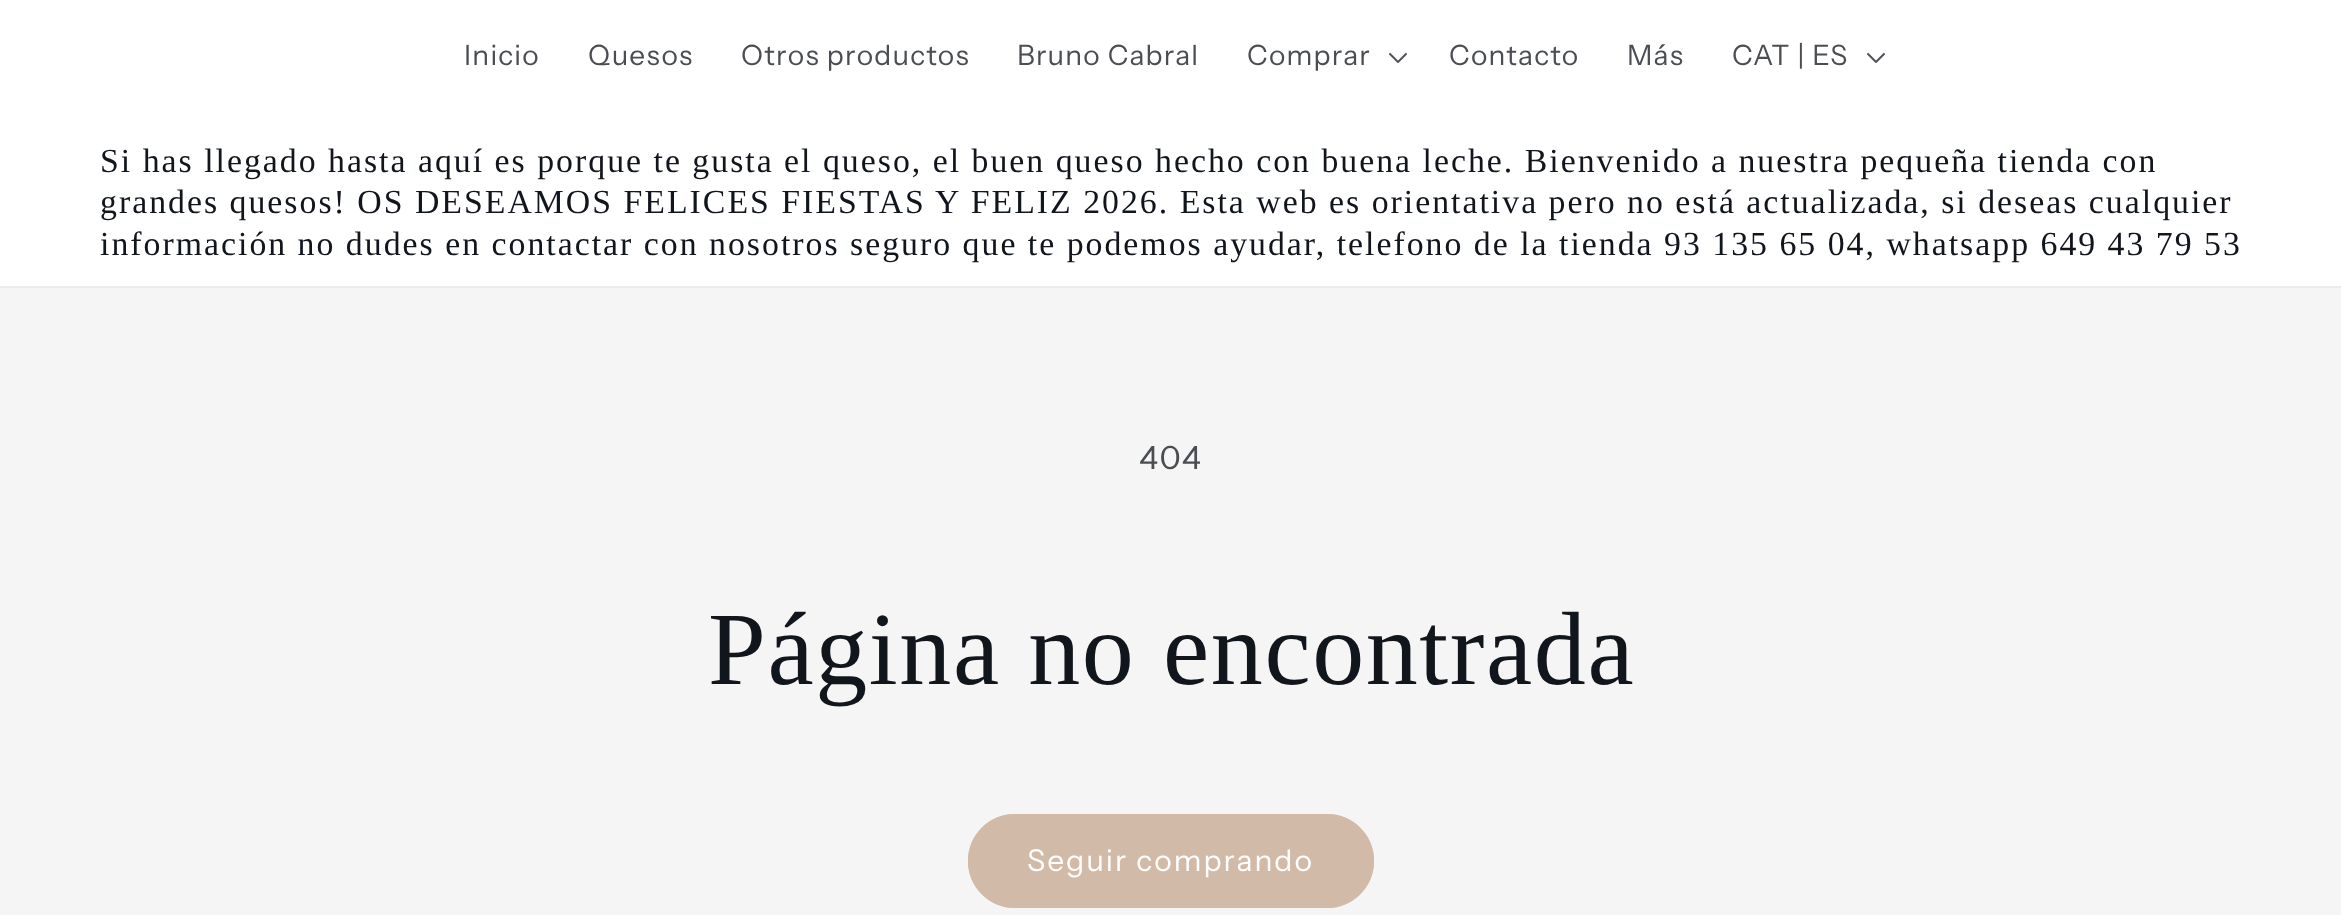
async function draw(canvas) {
  canvas.width = 2341
  canvas.height = 915
  const ctx = canvas.getContext('2d')
  ctx.miterLimit = 4
  ctx.fontKerning = 'normal'
  async function loadImage(src) {
    const img = new Image()
    img.src = src
    await img.decode()
    return img
  }

  ctx.fillStyle = '#f5f5f5'
  ctx.fillRect(0, 0, 2341, 915)
  ctx.fillStyle = '#fff'
  ctx.fillRect(0, 0, 2341, 286)
  ctx.letterSpacing = '1.25px'
  ctx.font = '28px Instrument Sans'
  ctx.fillStyle = '#4a4d52'
  ctx.fillText('Inicio', 464, 65)
  ctx.fillText('Quesos', 588, 65)
  ctx.fillText('Otros productos', 741, 65)
  ctx.fillText('Bruno Cabral', 1017, 65)
  ctx.fillText('Comprar', 1247, 65)
  ctx.drawImage(await loadImage('image0.png'), 1389, 53, 18, 10)
  ctx.fillText('Contacto', 1449, 65)
  ctx.fillText('Más', 1627, 65)
  ctx.fillText('CAT | ES', 1732, 65)
  ctx.drawImage(await loadImage('image0.png'), 1867, 53, 18, 10)
  ctx.fillStyle = '#ececed'
  ctx.fillRect(0, 286, 2341, 2)
  ctx.letterSpacing = '2px'
  ctx.font = '33.8px Liberation Serif'
  ctx.fillStyle = '#11151c'
  ctx.fillText('Si has llegado hasta aquí es porque te gusta el queso, el buen queso hecho con buena leche. Bienvenido a nuestra pequeña tienda con', 100, 172)
  ctx.fillText('grandes quesos! OS DESEAMOS FELICES FIESTAS Y FELIZ 2026. Esta web es orientativa pero no está actualizada, si deseas cualquier', 100, 213)
  ctx.fillText('información no dudes en contactar con nosotros seguro que te podemos ayudar, telefono de la tienda 93 135 65 04, whatsapp 649 43 79 53', 100, 255)
  ctx.letterSpacing = '1.25px'
  ctx.font = '32px Instrument Sans'
  ctx.fillStyle = '#4a4d52'
  ctx.fillText('404', 1139, 469)
  ctx.letterSpacing = '1.6px'
  ctx.font = '104px Liberation Serif'
  ctx.fillStyle = '#11151c'
  ctx.fillText('Página no encontrada', 708, 684)
  ctx.fillStyle = '#d1bba8'
  ctx.beginPath()
  ctx.roundRect(968, 814, 406, 94, 47)
  ctx.fill()
  ctx.beginPath()
  ctx.roundRect(969, 815, 404, 92, 46)
  ctx.strokeStyle = '#d1bba8'
  ctx.lineWidth = 2
  ctx.stroke()
  ctx.letterSpacing = '2px'
  ctx.font = '30px Instrument Sans'
  ctx.fillStyle = '#fff'
  ctx.fillText('Seguir comprando', 1027, 871)
}

draw(document.querySelector('canvas'))
